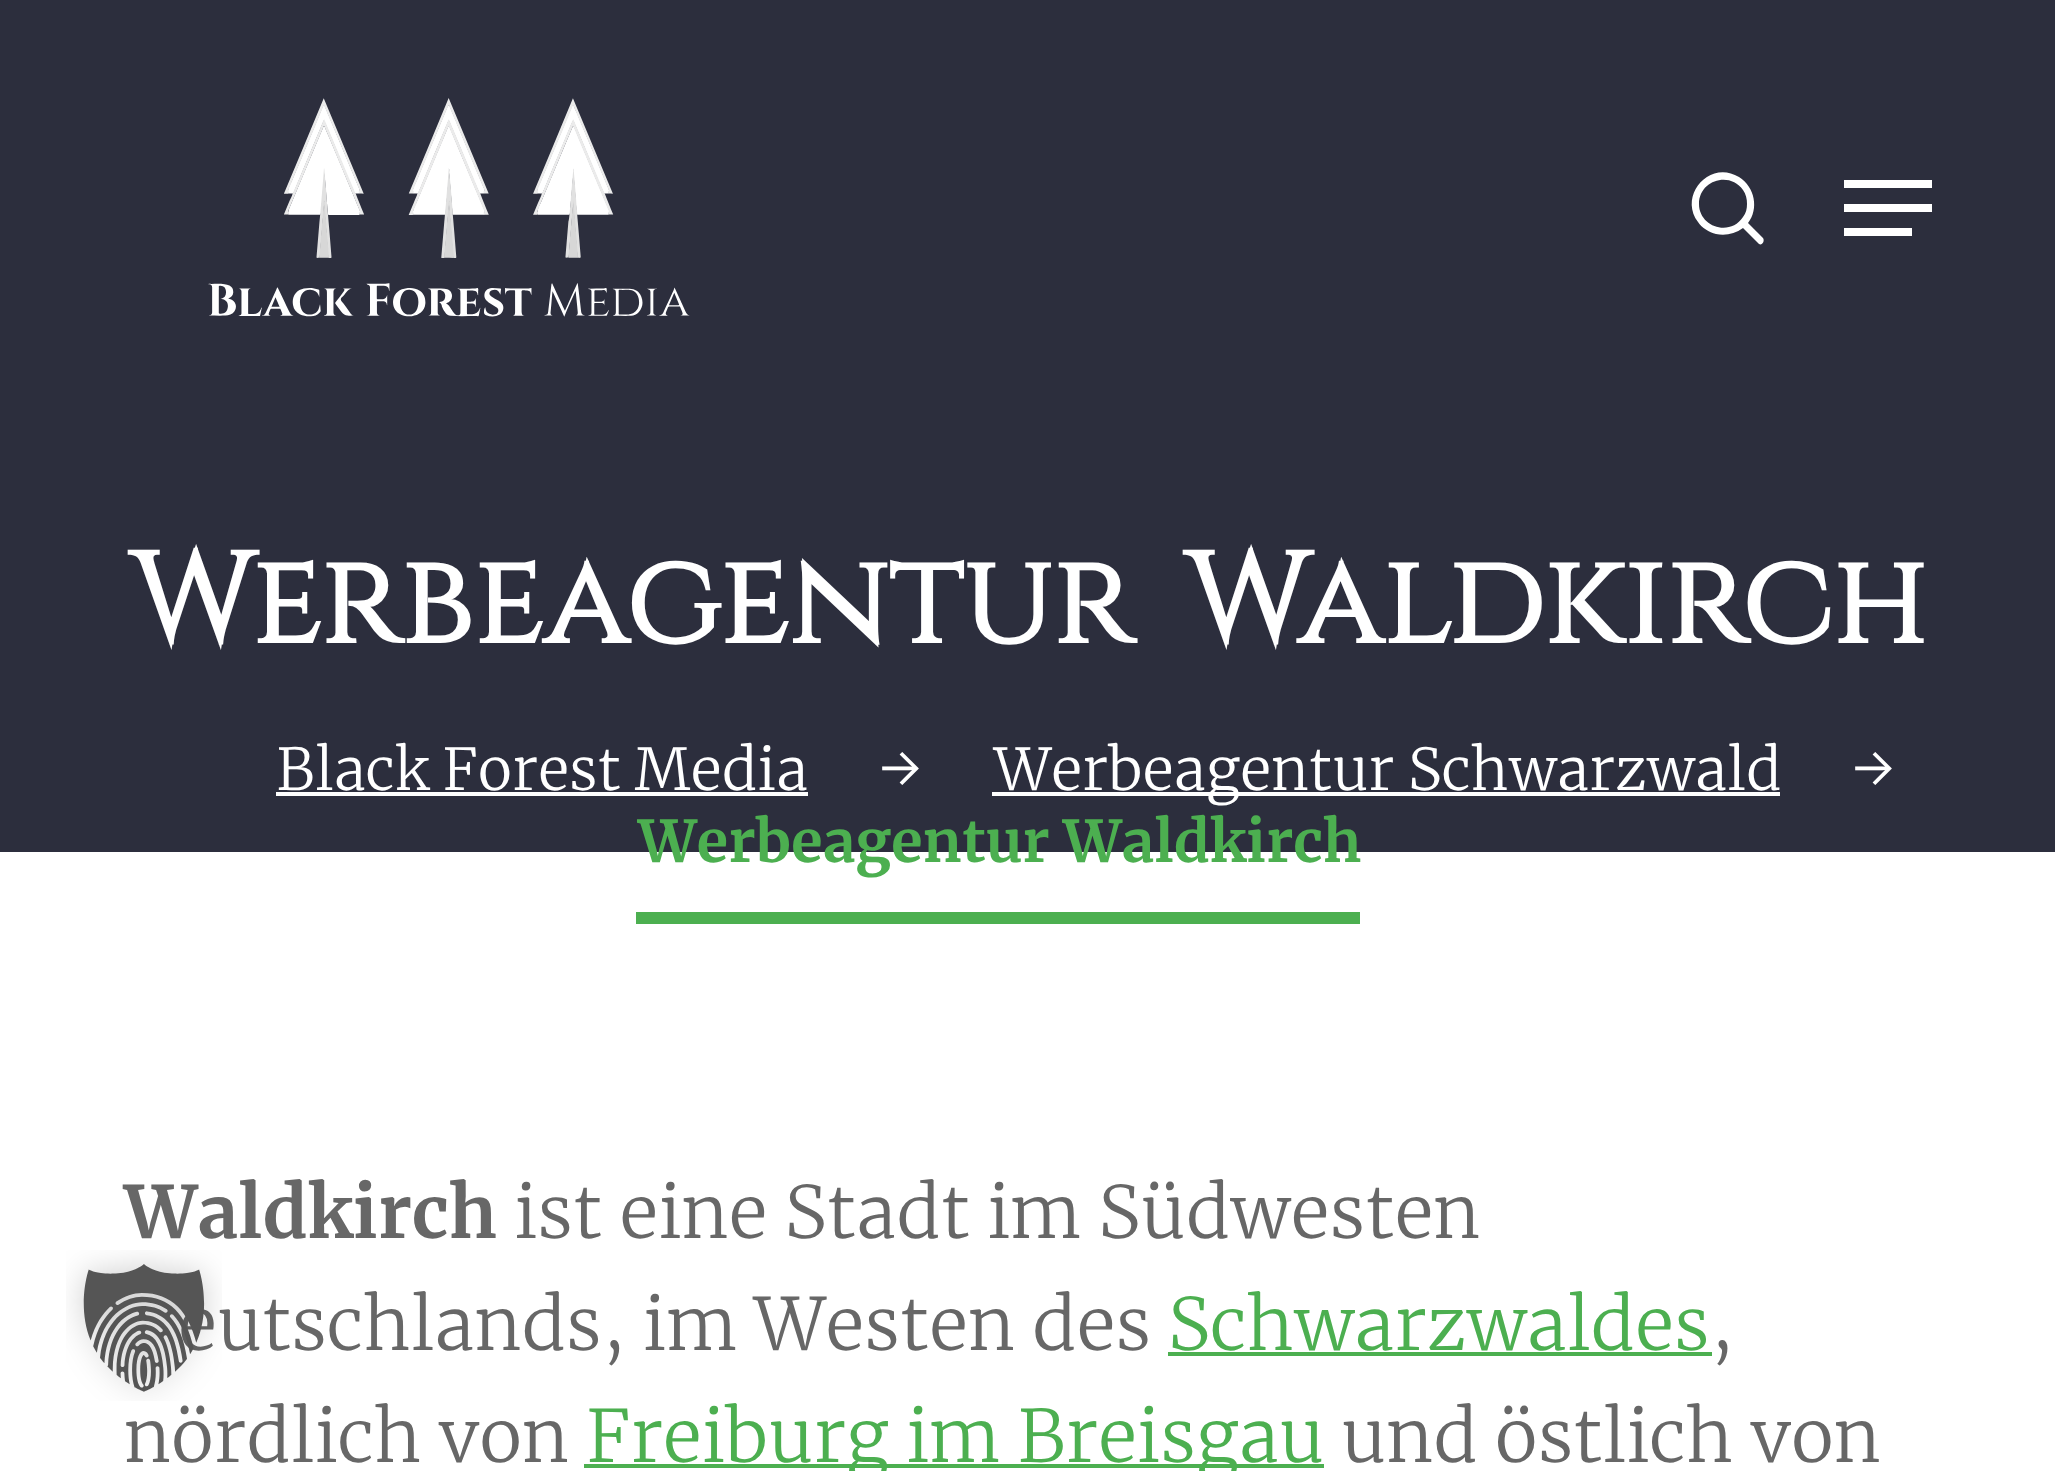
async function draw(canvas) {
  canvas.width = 2055
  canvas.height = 1471
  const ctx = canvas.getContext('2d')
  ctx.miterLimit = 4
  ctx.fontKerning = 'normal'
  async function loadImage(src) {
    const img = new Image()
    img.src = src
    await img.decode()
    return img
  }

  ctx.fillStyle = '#fff'
  ctx.fillRect(0, 0, 2055, 1471)
  ctx.fillStyle = '#2c2e3d'
  ctx.fillRect(0, 0, 2055, 852)
  ctx.drawImage(await loadImage('image0.png'), 208, 98, 482, 219)
  ctx.fillStyle = '#fff'
  ctx.beginPath()
  ctx.moveTo(1763, 238)
  ctx.lineTo(1748, 223)
  ctx.bezierCurveTo(1759, 209, 1755, 187, 1739, 177)
  ctx.bezierCurveTo(1710, 159, 1678, 195, 1698, 222)
  ctx.bezierCurveTo(1702, 228, 1709, 232, 1716, 234)
  ctx.bezierCurveTo(1725, 236, 1735, 234, 1743, 228)
  ctx.lineTo(1759, 244)
  ctx.bezierCurveTo(1762, 246, 1765, 241, 1763, 238)
  ctx.closePath()
  ctx.moveTo(1699, 204)
  ctx.bezierCurveTo(1699, 180, 1730, 171, 1743, 190)
  ctx.bezierCurveTo(1746, 194, 1747, 199, 1747, 204)
  ctx.bezierCurveTo(1747, 209, 1746, 213, 1743, 217)
  ctx.bezierCurveTo(1730, 237, 1699, 227, 1699, 204)
  ctx.closePath()
  ctx.fill()
  ctx.fillRect(1844, 180, 88, 8)
  ctx.fillRect(1844, 228, 68, 8)
  ctx.fillRect(1844, 204, 88, 8)
  ctx.wordSpacing = '20px'
  ctx.font = 'bold 128px Cinzel'
  ctx.fillText('Werbeagentur Waldkirch', 129, 643)
  ctx.wordSpacing = '0px'
  ctx.font = '300 57.6px Merriweather'
  ctx.fillText('Black Forest Media', 276, 790)
  ctx.fillRect(276, 792, 532, 4)
  ctx.fillText('→', 879, 790)
  ctx.fillRect(992, 792, 788, 4)
  ctx.fillText('Werbeagentur Schwarzwald', 994, 790)
  ctx.fillText('→', 1852, 790)
  ctx.font = 'bold 57.6px Merriweather'
  ctx.fillStyle = '#4caf50'
  ctx.fillText('Werbeagentur Waldkirch', 638, 862)
  ctx.fillRect(636, 912, 724, 12)
  ctx.font = 'bold 72px Merriweather'
  ctx.fillStyle = '#676767'
  ctx.fillText('Waldkirch', 124, 1238)
  ctx.font = '300 72px Merriweather'
  ctx.fillText('ist eine Stadt im Südwesten', 514, 1238)
  ctx.fillText('eutschlands, im Westen des', 178, 1350)
  ctx.fillStyle = '#4caf50'
  ctx.fillText('Schwarzwaldes', 1168, 1350)
  ctx.fillRect(1168, 1352, 544, 4)
  ctx.fillStyle = '#676767'
  ctx.fillText(',', 1710, 1350)
  ctx.fillText('nördlich von', 124, 1462)
  ctx.fillStyle = '#4caf50'
  ctx.fillRect(584, 1464, 740, 4)
  ctx.fillText('Freiburg im Breisgau', 586, 1462)
  ctx.fillStyle = '#676767'
  ctx.fillText('und östlich von', 1341, 1462)
  ctx.drawImage(await loadImage('image1.png'), 66, 1250, 156, 151)
}

draw(document.querySelector('canvas'))
